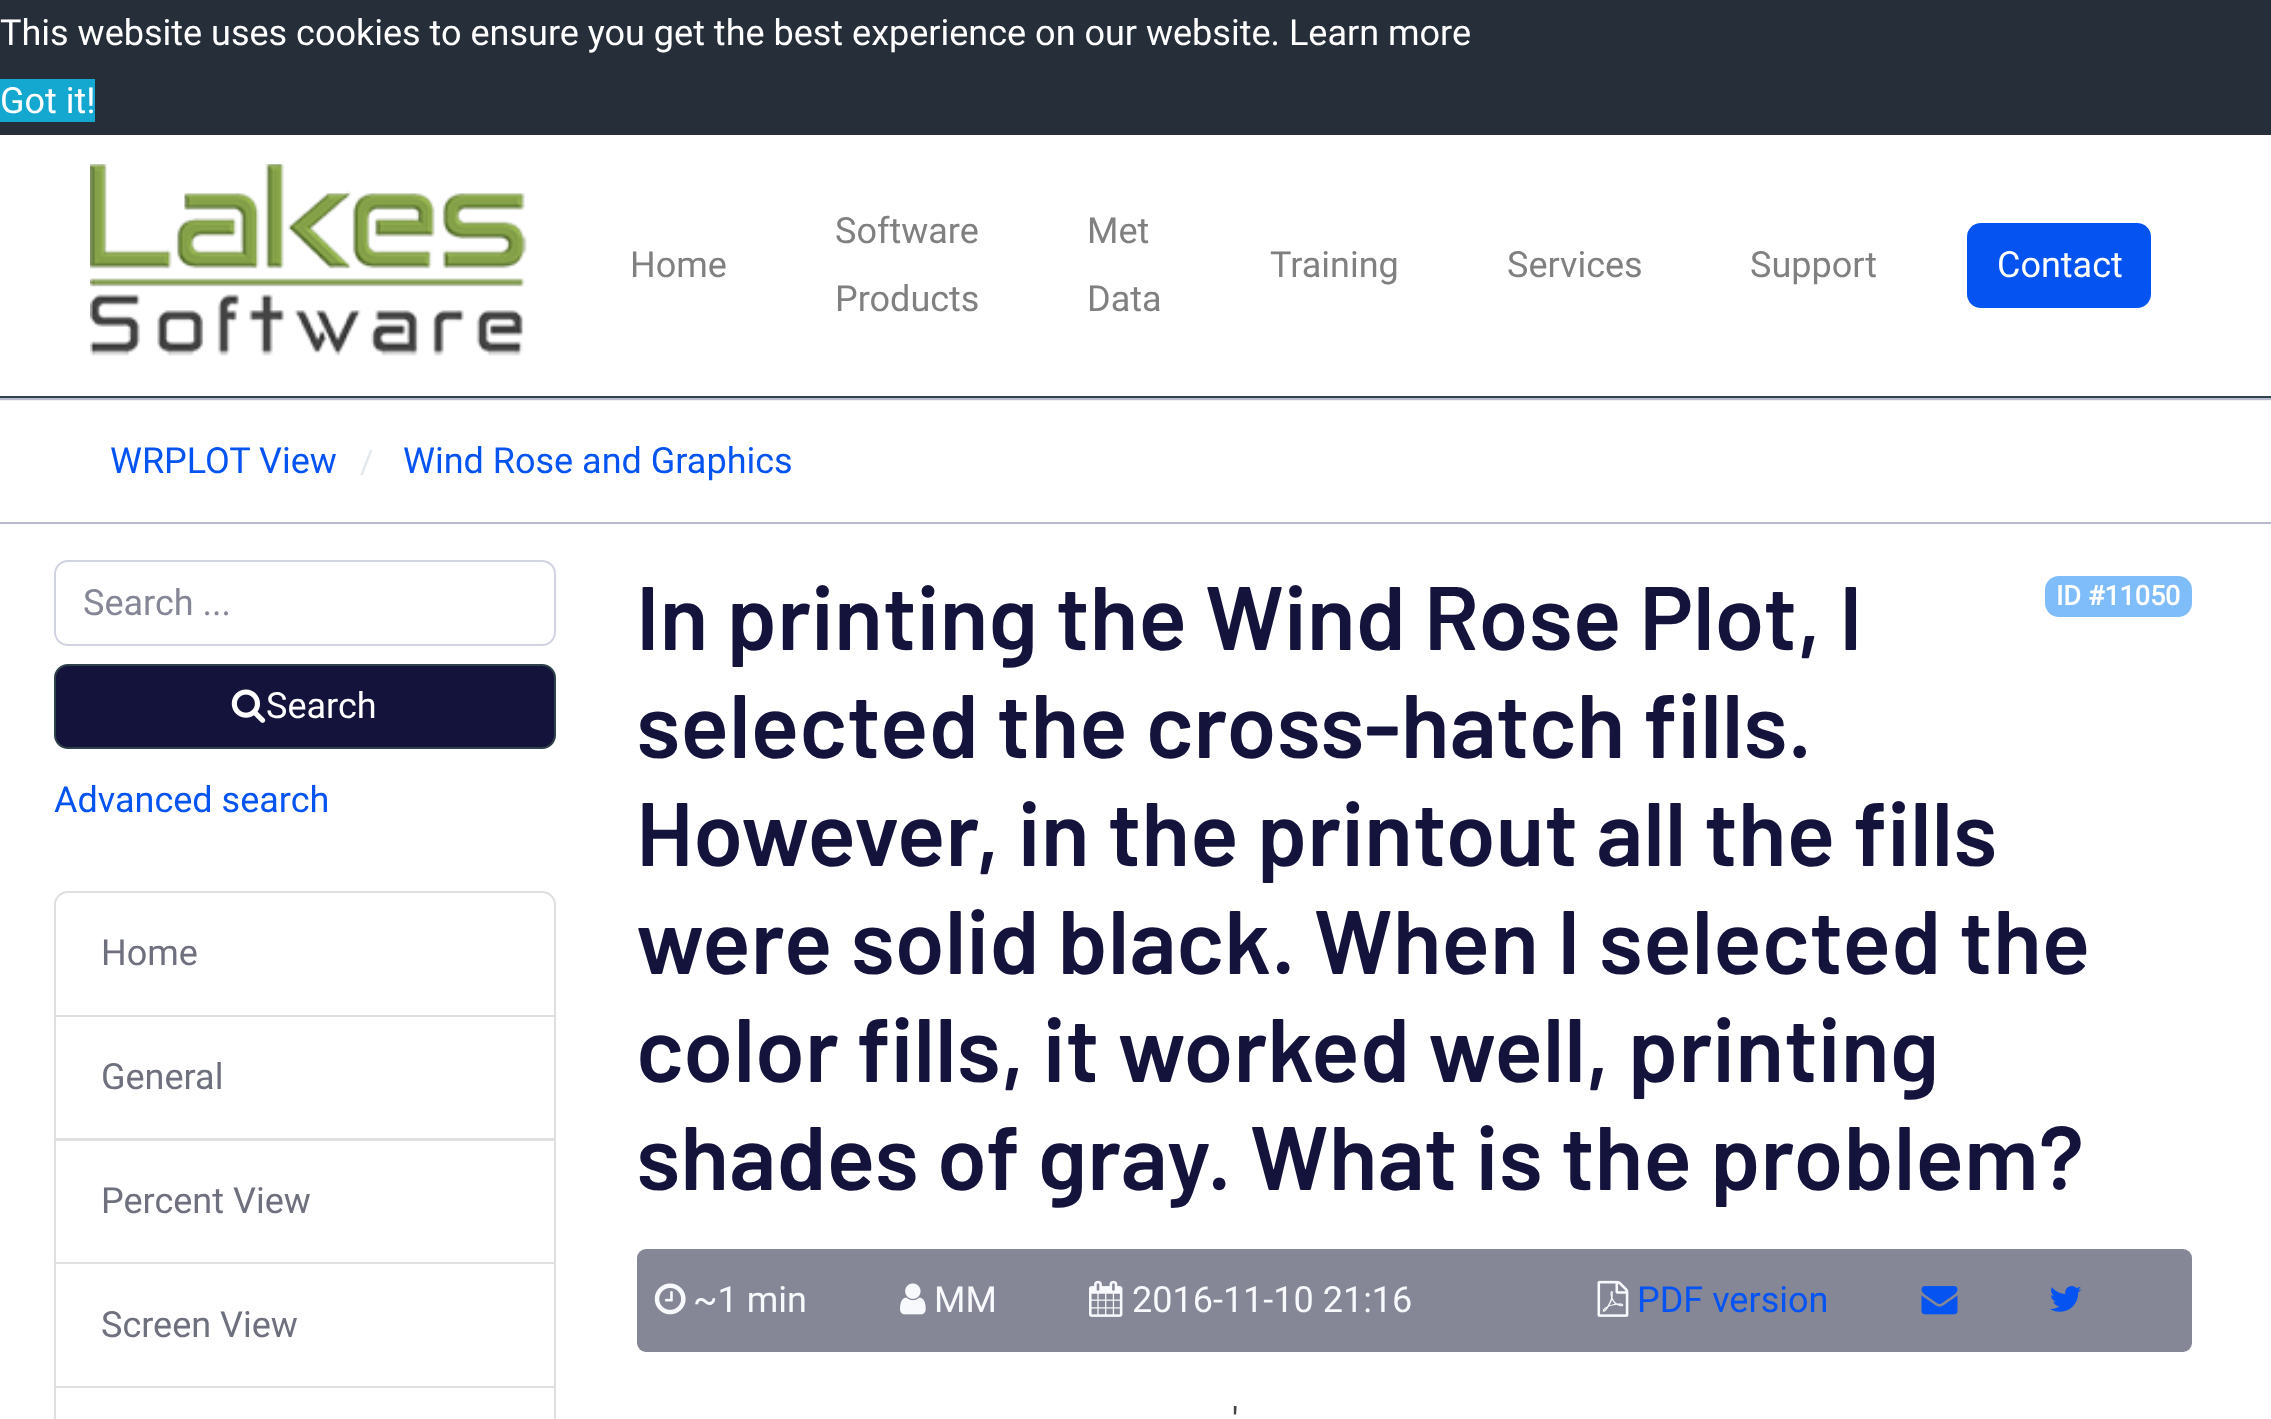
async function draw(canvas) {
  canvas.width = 2271
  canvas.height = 1419
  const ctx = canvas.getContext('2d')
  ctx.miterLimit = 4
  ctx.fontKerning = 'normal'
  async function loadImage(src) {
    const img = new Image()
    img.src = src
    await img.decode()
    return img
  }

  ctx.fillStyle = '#fff'
  ctx.fillRect(0, 0, 2271, 1419)
  ctx.fillStyle = '#252e39'
  ctx.fillRect(0, 0, 2271, 135)
  ctx.font = '36px Roboto'
  ctx.fillStyle = '#fff'
  ctx.fillText('This website uses cookies to ensure you get the best experience on our website. Learn more', 0, 45)
  ctx.fillStyle = '#14a7d0'
  ctx.fillRect(0, 79, 95, 43)
  ctx.fillStyle = '#fff'
  ctx.fillText('Got it!', 0, 113)
  ctx.drawImage(await loadImage('image0.png'), 90, 164, 437, 192)
  ctx.fillStyle = '#808080'
  ctx.fillText('Home', 630, 277)
  ctx.fillText('Software', 835, 243)
  ctx.fillText('Products', 835, 311)
  ctx.fillText('Met', 1087, 243)
  ctx.fillText('Data', 1087, 311)
  ctx.fillText('Training', 1270, 277)
  ctx.fillText('Services', 1507, 277)
  ctx.fillText('Support', 1750, 277)
  ctx.fillStyle = '#0554f2'
  ctx.beginPath()
  ctx.roundRect(1967, 223, 184, 85, 14)
  ctx.fill()
  ctx.fillStyle = '#fff'
  ctx.fillText('Contact', 1997, 277)
  ctx.fillStyle = '#f1f1f5'
  ctx.fillRect(0, 400, 2271, 1)
  ctx.fillStyle = '#2f414a'
  ctx.fillRect(0, 396, 2271, 2)
  ctx.fillStyle = '#b7b9cc'
  ctx.fillRect(0, 398, 2271, 2)
  ctx.fillRect(0, 522, 2271, 2)
  ctx.fillStyle = '#0554f2'
  ctx.fillText('WRPLOT View', 110, 473)
  ctx.font = '32px Roboto'
  ctx.fillStyle = '#e1e8ee'
  ctx.fillText('/', 360, 473)
  ctx.font = '36px Roboto'
  ctx.fillStyle = '#0554f2'
  ctx.fillText('Wind Rose and Graphics', 403, 473)
  ctx.beginPath()
  ctx.roundRect(55, 561, 500, 84, 13)
  ctx.strokeStyle = '#d1d3e2'
  ctx.lineWidth = 2
  ctx.stroke()
  ctx.fillStyle = '#858796'
  ctx.fillText('Search ...', 83, 615)
  ctx.fillStyle = '#14133b'
  ctx.beginPath()
  ctx.roundRect(55, 665, 500, 83, 13)
  ctx.fill()
  ctx.strokeStyle = '#2f414a'
  ctx.stroke()
  ctx.drawImage(await loadImage('image1.png'), 231, 689, 35, 34)
  ctx.fillStyle = '#fff'
  ctx.fillText('Search', 266, 718)
  ctx.fillStyle = '#0554f2'
  ctx.fillText('Advanced search', 54, 812)
  ctx.beginPath()
  ctx.roundRect(55, 892, 500, 124, [13, 13, 0, 0])
  ctx.strokeStyle = '#dfdfdf'
  ctx.stroke()
  ctx.fillStyle = '#6e707e'
  ctx.fillText('Home', 101, 965)
  ctx.fillStyle = '#dfdfdf'
  ctx.beginPath()
  ctx.moveTo(556, 1017)
  ctx.lineTo(556, 1141)
  ctx.lineTo(554, 1138)
  ctx.lineTo(554, 1017)
  ctx.closePath()
  ctx.fill()
  ctx.fillStyle = '#0000001f'
  ctx.beginPath()
  ctx.moveTo(556, 1141)
  ctx.lineTo(54, 1141)
  ctx.lineTo(56, 1138)
  ctx.lineTo(554, 1138)
  ctx.closePath()
  ctx.fill()
  ctx.beginPath()
  ctx.moveTo(54, 1141)
  ctx.lineTo(54, 1017)
  ctx.lineTo(56, 1017)
  ctx.lineTo(56, 1138)
  ctx.closePath()
  ctx.fill()
  ctx.fillStyle = '#6e707e'
  ctx.fillText('General', 101, 1089)
  ctx.fillStyle = '#dfdfdf'
  ctx.beginPath()
  ctx.moveTo(556, 1141)
  ctx.lineTo(556, 1264)
  ctx.lineTo(554, 1262)
  ctx.lineTo(554, 1141)
  ctx.closePath()
  ctx.fill()
  ctx.fillStyle = '#0000001f'
  ctx.beginPath()
  ctx.moveTo(556, 1264)
  ctx.lineTo(54, 1264)
  ctx.lineTo(56, 1262)
  ctx.lineTo(554, 1262)
  ctx.closePath()
  ctx.fill()
  ctx.beginPath()
  ctx.moveTo(54, 1264)
  ctx.lineTo(54, 1141)
  ctx.lineTo(56, 1141)
  ctx.lineTo(56, 1262)
  ctx.closePath()
  ctx.fill()
  ctx.fillStyle = '#6e707e'
  ctx.fillText('Percent View', 101, 1213)
  ctx.fillStyle = '#dfdfdf'
  ctx.beginPath()
  ctx.moveTo(556, 1264)
  ctx.lineTo(556, 1388)
  ctx.lineTo(554, 1386)
  ctx.lineTo(554, 1264)
  ctx.closePath()
  ctx.fill()
  ctx.fillStyle = '#0000001f'
  ctx.beginPath()
  ctx.moveTo(556, 1388)
  ctx.lineTo(54, 1388)
  ctx.lineTo(56, 1386)
  ctx.lineTo(554, 1386)
  ctx.closePath()
  ctx.fill()
  ctx.beginPath()
  ctx.moveTo(54, 1388)
  ctx.lineTo(54, 1264)
  ctx.lineTo(56, 1264)
  ctx.lineTo(56, 1386)
  ctx.closePath()
  ctx.fill()
  ctx.fillStyle = '#6e707e'
  ctx.fillText('Screen View', 101, 1337)
  ctx.fillStyle = '#dfdfdf'
  ctx.beginPath()
  ctx.moveTo(54, 1388)
  ctx.lineTo(556, 1388)
  ctx.lineTo(556, 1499)
  ctx.bezierCurveTo(556, 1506, 550, 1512, 543, 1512)
  ctx.lineTo(67, 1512)
  ctx.bezierCurveTo(60, 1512, 54, 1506, 54, 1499)
  ctx.closePath()
  ctx.moveTo(56, 1388)
  ctx.lineTo(554, 1388)
  ctx.lineTo(554, 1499)
  ctx.bezierCurveTo(554, 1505, 549, 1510, 543, 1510)
  ctx.lineTo(67, 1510)
  ctx.bezierCurveTo(61, 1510, 56, 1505, 56, 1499)
  ctx.closePath()
  ctx.fill('evenodd')
  ctx.font = '600 90px Barlow'
  ctx.fillStyle = '#14133b'
  ctx.fillText('In printing the Wind Rose Plot, I', 636, 650)
  ctx.fillText('selected the cross-hatch fills.', 636, 758)
  ctx.fillText('However, in the printout all the fills', 636, 866)
  ctx.fillText('were solid black. When I selected the', 636, 974)
  ctx.fillText('color fills, it worked well, printing', 636, 1082)
  ctx.fillText('shades of gray. What is the problem?', 636, 1190)
  ctx.fillStyle = '#7ebcfa'
  ctx.beginPath()
  ctx.roundRect(2045, 576, 147, 41, 14)
  ctx.fill()
  ctx.font = 'bold 27px Roboto'
  ctx.fillStyle = '#fff'
  ctx.fillText('ID #11050', 2056, 605)
  ctx.fillStyle = '#858796'
  ctx.beginPath()
  ctx.roundRect(637, 1249, 1555, 103, 9)
  ctx.fill()
  ctx.drawImage(await loadImage('image2.png'), 654, 1283, 32, 32)
  ctx.font = '36px Roboto'
  ctx.fillStyle = '#f8f9fc'
  ctx.fillText('~1 min', 693, 1312)
  ctx.drawImage(await loadImage('image3.png'), 900, 1283, 26, 32)
  ctx.fillText('MM', 934, 1312)
  ctx.drawImage(await loadImage('image4.png'), 1089, 1280, 34, 37)
  ctx.fillText('2016-11-10 21:16', 1132, 1312)
  ctx.drawImage(await loadImage('image5.png'), 1597, 1280, 32, 37)
  ctx.fillStyle = '#0554f2'
  ctx.fillText('PDF version', 1637, 1312)
  ctx.drawImage(await loadImage('image6.png'), 1921, 1286, 37, 29)
  ctx.drawImage(await loadImage('image7.png'), 2050, 1286, 32, 26)
  ctx.fillStyle = '#444'
  ctx.fillText('\'', 1232, 1433)
}

draw(document.querySelector('canvas'))
